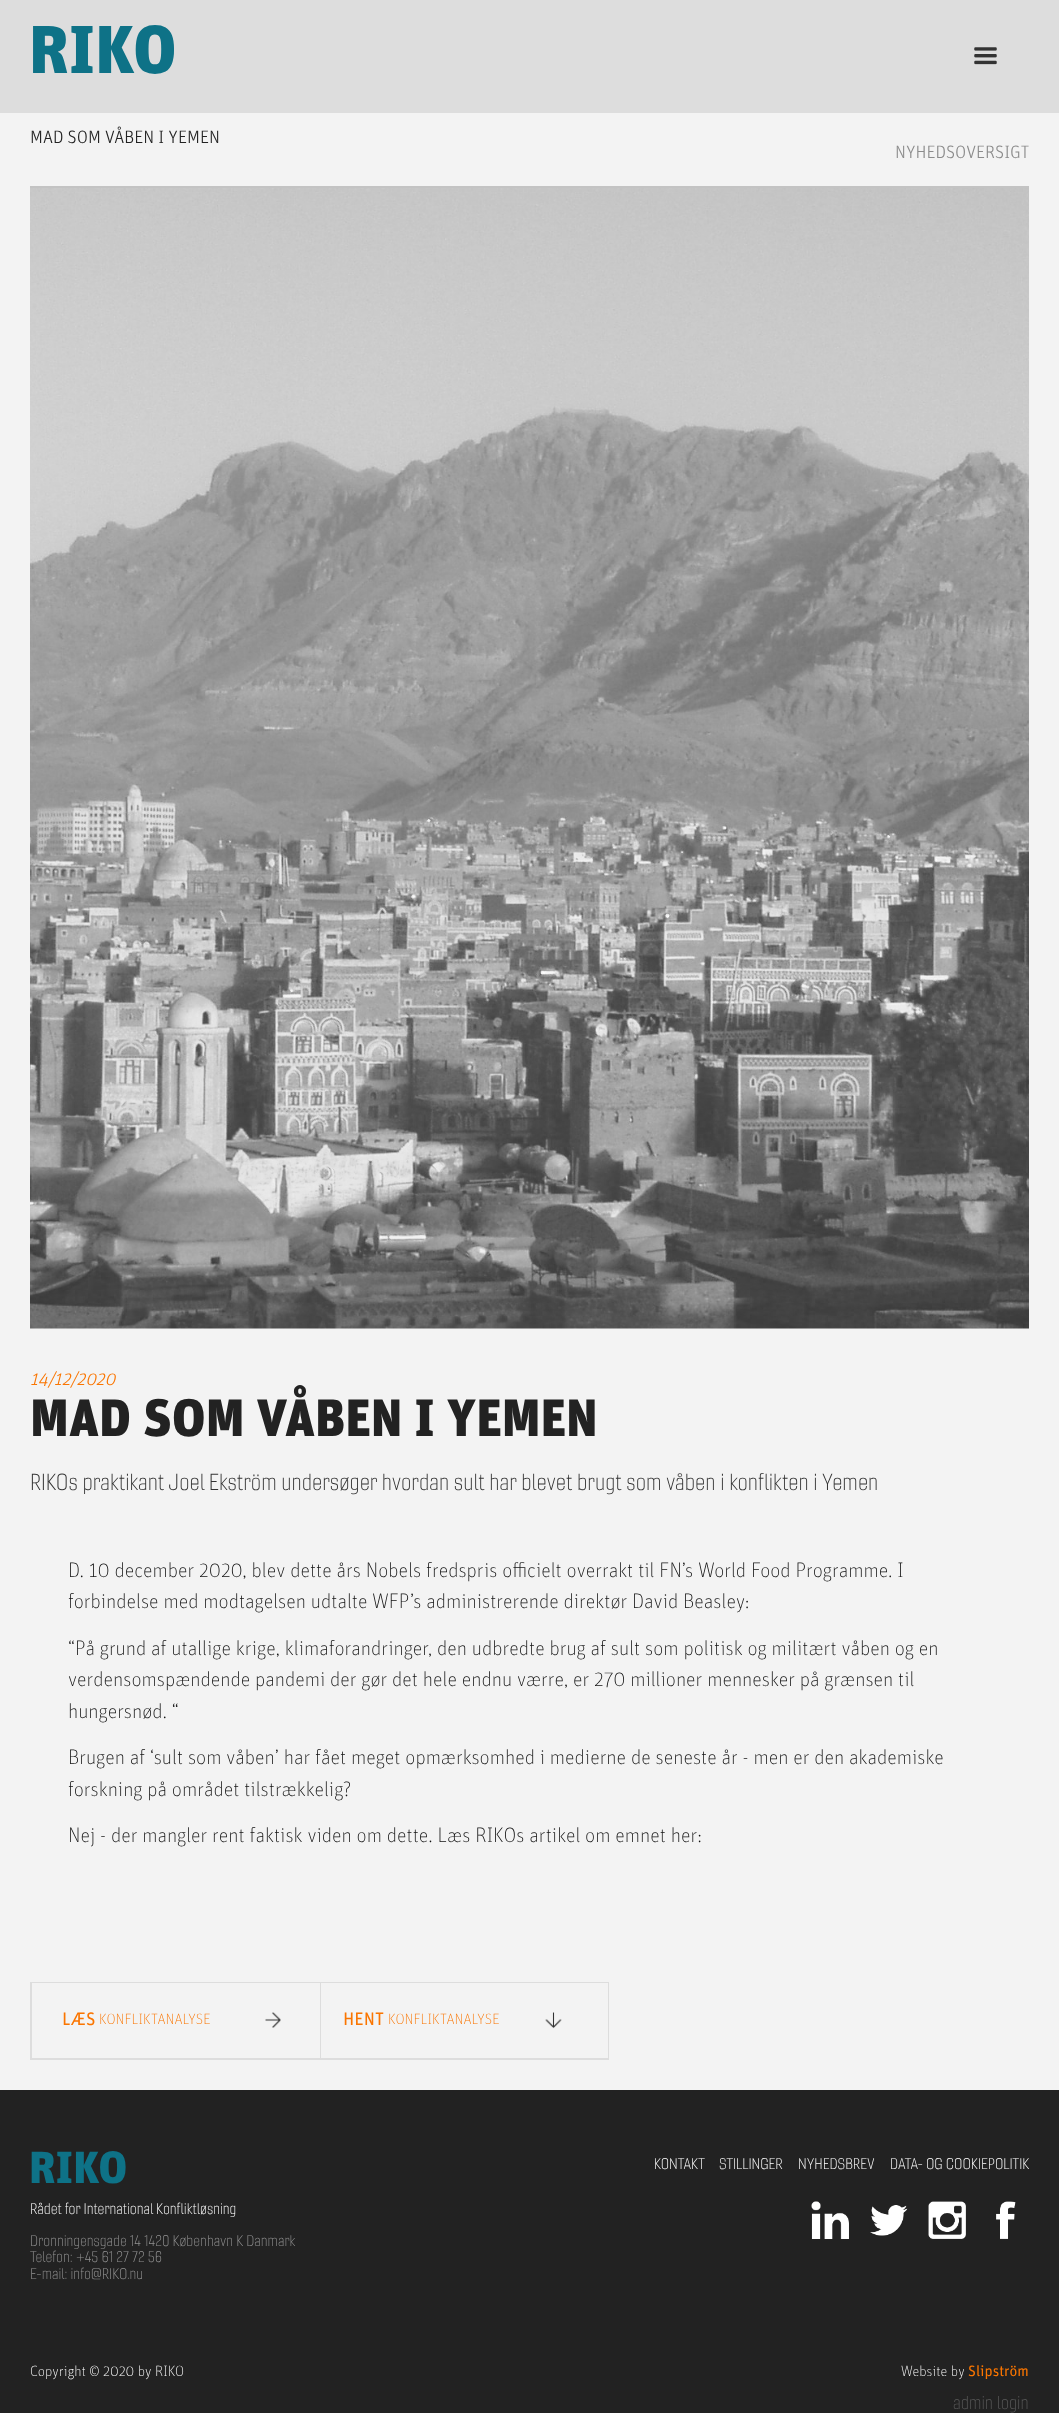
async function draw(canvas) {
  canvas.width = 1059
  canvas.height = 2413
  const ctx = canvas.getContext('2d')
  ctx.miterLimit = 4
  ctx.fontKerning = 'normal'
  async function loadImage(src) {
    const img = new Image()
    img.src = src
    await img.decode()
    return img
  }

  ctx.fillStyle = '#f3f3f3'
  ctx.fillRect(0, 0, 1059, 2413)
  ctx.fillStyle = '#ddd'
  ctx.fillRect(0, 0, 1059, 113)
  ctx.font = '900 67.5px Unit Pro'
  ctx.fillStyle = '#0e7287'
  ctx.fillText('RIKO', 29, 73)
  ctx.drawImage(await loadImage('image0.png'), 974, 47, 23, 18)
  ctx.fillStyle = '#c3c3c3'
  ctx.fillRect(30, 186, 999, 2)
  ctx.font = '300 18px Unit Pro'
  ctx.fillStyle = '#222'
  ctx.fillText('MAD SOM VÅBEN I YEMEN', 30, 143)
  ctx.fillStyle = '#8b8b8b'
  ctx.fillText('NYHEDSOVERSIGT', 895, 158)
  ctx.drawImage(await loadImage('image1.png'), 30, 188, 999, 1141)
  ctx.font = 'italic 300 18px Unit Pro'
  ctx.fillStyle = '#fa7500'
  ctx.fillText('14/12/2020', 30, 1385)
  ctx.font = '900 52.5px Unit Pro'
  ctx.fillStyle = '#222'
  ctx.fillText('MAD SOM VÅBEN I YEMEN', 30, 1436)
  ctx.font = '300 22.5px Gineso'
  ctx.fillStyle = '#333'
  ctx.fillText('RIKOs praktikant Joel Ekström undersøger hvordan sult har blevet brugt som våben i konflikten i Yemen', 30, 1490)
  ctx.font = '100 21px Unit Pro'
  ctx.fillStyle = '#111'
  ctx.fillText('D. 10 december 2020, blev dette års Nobels fredspris officielt overrakt til FN’s World Food Programme. I', 68, 1577)
  ctx.fillText('forbindelse med modtagelsen udtalte WFP’s administrerende direktør David Beasley:', 68, 1608)
  ctx.fillText('“På grund af utallige krige, klimaforandringer, den udbredte brug af sult som politisk og militært våben og en', 68, 1655)
  ctx.fillText('verdensomspændende pandemi der gør det hele endnu værre, er 270 millioner mennesker på grænsen til', 68, 1686)
  ctx.fillText('hungersnød. “', 68, 1718)
  ctx.fillText('Brugen af ‘sult som våben’ har fået meget opmærksomhed i medierne de seneste år - men er den akademiske', 68, 1764)
  ctx.fillText('forskning på området tilstrækkelig?', 68, 1796)
  ctx.fillText('Nej - der mangler rent faktisk viden om dette. Læs RIKOs artikel om emnet her:', 68, 1842)
  ctx.strokeStyle = '#ddd'
  ctx.lineWidth = 2
  ctx.strokeRect(31, 1983, 577, 76)
  ctx.fillStyle = '#f3f3f3'
  ctx.fillRect(32, 1983, 288, 1)
  ctx.fillStyle = '#ddd'
  ctx.fillRect(320, 1983, 1, 75)
  ctx.font = '18px Unit Pro'
  ctx.fillStyle = '#fa7500'
  ctx.fillText('LÆS', 62, 2025)
  ctx.font = '100 15px Unit Pro'
  ctx.fillText('KONFLIKTANALYSE', 99, 2024)
  ctx.drawImage(await loadImage('image2.png'), 265, 2012, 16, 16)
  ctx.fillStyle = '#f3f3f3'
  ctx.fillRect(321, 1983, 287, 75)
  ctx.font = '18px Unit Pro'
  ctx.fillStyle = '#fa7500'
  ctx.fillText('HENT', 343, 2025)
  ctx.font = '100 15px Unit Pro'
  ctx.fillText('KONFLIKTANALYSE', 388, 2024)
  ctx.drawImage(await loadImage('image3.png'), 545, 2012, 17, 17)
  ctx.fillStyle = '#222'
  ctx.fillRect(0, 2090, 1059, 323)
  ctx.font = '900 45px Unit Pro'
  ctx.fillStyle = '#0e7287'
  ctx.fillText('RIKO', 29, 2183)
  ctx.font = '300 15px Gineso'
  ctx.fillStyle = '#fff'
  ctx.fillText('Rådet for International Konfliktløsning', 30, 2214)
  ctx.fillStyle = '#919191'
  ctx.fillText('Dronningensgade 14 1420 København K Danmark', 30, 2246)
  ctx.fillText('Telefon: +45 61 27 72 56', 30, 2262)
  ctx.fillText('E-mail: info@RIKO.nu', 30, 2279)
  ctx.fillStyle = '#fff'
  ctx.fillText('KONTAKT', 654, 2169)
  ctx.fillText('STILLINGER', 719, 2169)
  ctx.fillText('NYHEDSBREV', 798, 2169)
  ctx.fillText('DATA- OG COOKIEPOLITIK', 890, 2169)
  ctx.drawImage(await loadImage('image4.png'), 811, 2201, 38, 38)
  ctx.drawImage(await loadImage('image5.png'), 870, 2205, 38, 31)
  ctx.drawImage(await loadImage('image6.png'), 928, 2201, 38, 38)
  ctx.drawImage(await loadImage('image7.png'), 996, 2201, 20, 38)
  ctx.font = '100 15px Unit Pro'
  ctx.fillText('Copyright © 2020 by RIKO', 30, 2376)
  ctx.fillText('Website by', 901, 2376)
  ctx.font = '15px Unit Pro'
  ctx.fillStyle = '#fa7500'
  ctx.fillText('Slipström', 968, 2376)
  ctx.font = '300 18px Gineso'
  ctx.fillStyle = '#595959'
  ctx.fillText('admin login', 953, 2409)
}

draw(document.querySelector('canvas'))
